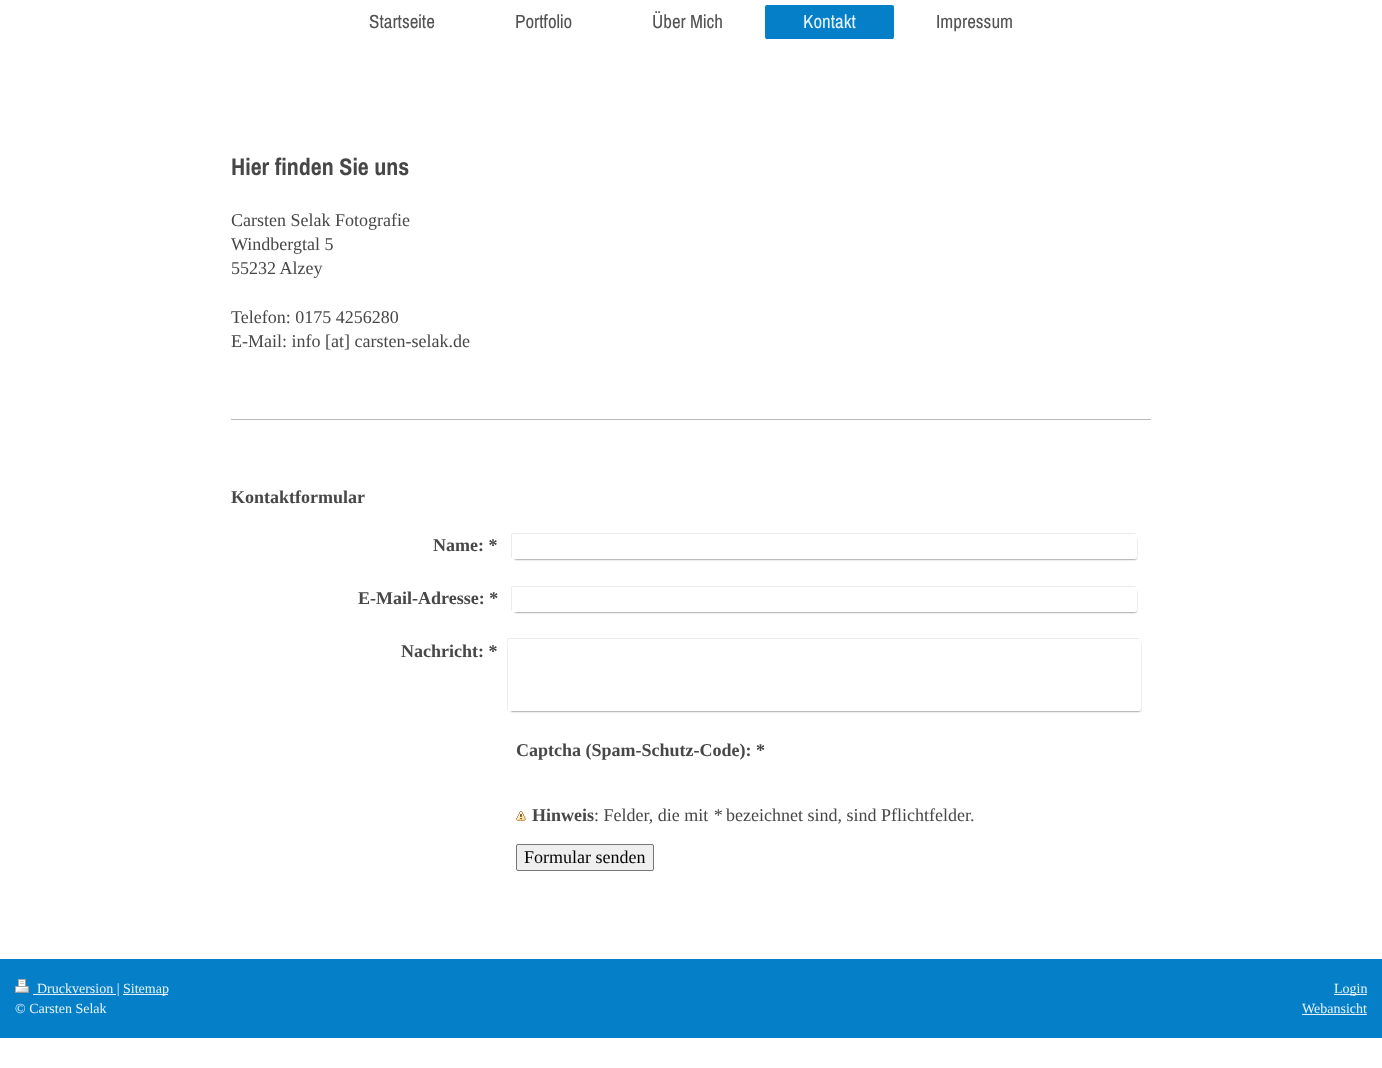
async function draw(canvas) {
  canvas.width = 1382
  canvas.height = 1068
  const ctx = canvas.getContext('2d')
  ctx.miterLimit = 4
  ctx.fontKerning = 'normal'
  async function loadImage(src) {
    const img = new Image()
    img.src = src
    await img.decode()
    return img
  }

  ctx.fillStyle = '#fff'
  ctx.fillRect(0, 0, 1382, 1068)
  ctx.font = '19px Archivo Narrow'
  ctx.fillStyle = '#535353'
  ctx.fillText('Startseite', 369, 28)
  ctx.fillText('Portfolio', 515, 28)
  ctx.fillText('Über Mich', 652, 28)
  ctx.fillStyle = '#0580c8'
  ctx.beginPath()
  ctx.roundRect(765, 5, 129, 34, 2)
  ctx.fill()
  ctx.fillRect(766, 38, 127, 1)
  ctx.fillStyle = '#e6f2fa'
  ctx.fillText('Kontakt', 803, 28)
  ctx.fillStyle = '#535353'
  ctx.fillText('Impressum', 936, 28)
  ctx.font = 'bold 24px Archivo Narrow'
  ctx.fillStyle = '#474747'
  ctx.fillText('Hier finden Sie uns', 231, 175)
  ctx.font = '18px Liberation Serif'
  ctx.fillText('Carsten Selak Fotografie', 231, 226)
  ctx.fillText('Windbergtal 5', 231, 250)
  ctx.fillText('55232 Alzey', 231, 274)
  ctx.fillText('Telefon: 0175 4256280', 231, 323)
  ctx.fillText('E-Mail: info [at] carsten-selak.de', 231, 347)
  ctx.fillStyle = '#bababa'
  ctx.fillRect(231, 419, 920, 1)
  ctx.font = 'bold 18px Liberation Serif'
  ctx.fillStyle = '#474747'
  ctx.fillText('Kontaktformular', 231, 503)
  ctx.fillStyle = '#ebebeb'
  ctx.beginPath()
  ctx.moveTo(513, 533)
  ctx.bezierCurveTo(512, 533, 511, 534, 511, 535)
  ctx.lineTo(511, 556)
  ctx.bezierCurveTo(511, 557, 511, 558, 512, 558)
  ctx.lineTo(512, 540)
  ctx.bezierCurveTo(512, 538, 511, 534, 514, 534)
  ctx.lineTo(1136, 534)
  ctx.lineTo(1134, 533)
  ctx.closePath()
  ctx.fill()
  ctx.fillStyle = '#000000cc'
  ctx.filter = 'blur(1px)'
  ctx.beginPath()
  ctx.rect(515, 538, 621, 21)
  ctx.fill()
  ctx.filter = 'none'
  ctx.fillStyle = '#474747'
  ctx.fillText('Name: *', 433, 551)
  ctx.fillStyle = '#fff'
  ctx.beginPath()
  ctx.roundRect(512, 534, 625, 25, 2)
  ctx.fill()
  ctx.fillStyle = '#ebebeb'
  ctx.beginPath()
  ctx.moveTo(513, 586)
  ctx.bezierCurveTo(512, 586, 511, 587, 511, 588)
  ctx.lineTo(511, 609)
  ctx.bezierCurveTo(511, 610, 511, 611, 512, 611)
  ctx.lineTo(512, 592)
  ctx.bezierCurveTo(512, 591, 511, 587, 514, 587)
  ctx.lineTo(1136, 587)
  ctx.lineTo(1134, 586)
  ctx.closePath()
  ctx.fill()
  ctx.fillStyle = '#000000cc'
  ctx.filter = 'blur(1px)'
  ctx.beginPath()
  ctx.rect(515, 591, 621, 21)
  ctx.fill()
  ctx.filter = 'none'
  ctx.fillStyle = '#474747'
  ctx.fillText('E-Mail-Adresse: *', 358, 604)
  ctx.fillStyle = '#fff'
  ctx.beginPath()
  ctx.roundRect(512, 587, 625, 25, 2)
  ctx.fill()
  ctx.fillStyle = '#ebebeb'
  ctx.beginPath()
  ctx.moveTo(509, 638)
  ctx.lineTo(507, 639)
  ctx.lineTo(507, 709)
  ctx.lineTo(508, 710)
  ctx.lineTo(508, 652)
  ctx.bezierCurveTo(508, 648, 506, 639, 510, 639)
  ctx.lineTo(1140, 639)
  ctx.lineTo(1138, 638)
  ctx.closePath()
  ctx.fill()
  ctx.fillStyle = '#000000cc'
  ctx.filter = 'blur(1px)'
  ctx.beginPath()
  ctx.rect(511, 643, 629, 68)
  ctx.fill()
  ctx.filter = 'none'
  ctx.fillStyle = '#474747'
  ctx.fillText('Nachricht: *', 401, 657)
  ctx.fillStyle = '#fff'
  ctx.beginPath()
  ctx.roundRect(508, 639, 633, 72, 2)
  ctx.fill()
  ctx.fillStyle = '#474747'
  ctx.fillText('Captcha (Spam-Schutz-Code): *', 516, 756)
  ctx.drawImage(await loadImage('image0.png'), 516, 811, 10, 10)
  ctx.fillText('Hinweis', 532, 821)
  ctx.font = '18px Liberation Serif'
  ctx.fillText(': Felder, die mit', 594, 821)
  ctx.font = 'italic 18px Liberation Serif'
  ctx.fillText('*', 713, 821)
  ctx.font = '18px Liberation Serif'
  ctx.fillText('bezeichnet sind, sind Pflichtfelder.', 726, 821)
  ctx.fillStyle = '#efefef'
  ctx.beginPath()
  ctx.roundRect(516.5, 844.5, 137, 26, 1.5)
  ctx.fill()
  ctx.strokeStyle = '#767676'
  ctx.stroke()
  ctx.fillStyle = '#000'
  ctx.fillText('Formular senden', 524, 863)
  ctx.fillStyle = '#0580c8'
  ctx.fillRect(0, 959, 1382, 79)
  ctx.drawImage(await loadImage('image1.png'), 15, 979, 14, 14)
  ctx.fillStyle = '#e6f2fa'
  ctx.fillRect(33, 994, 83, 1)
  ctx.font = '14px Liberation Serif'
  ctx.fillText('Druckversion |', 37, 993)
  ctx.fillRect(123, 994, 45, 1)
  ctx.fillText('Sitemap', 123, 993)
  ctx.fillText('© Carsten Selak', 15, 1013)
  ctx.fillRect(1334, 994, 33, 1)
  ctx.fillText('Login', 1334, 993)
  ctx.fillText('Webansicht', 1302, 1013)
  ctx.fillRect(1302, 1014, 65, 1)
}

draw(document.querySelector('canvas'))
